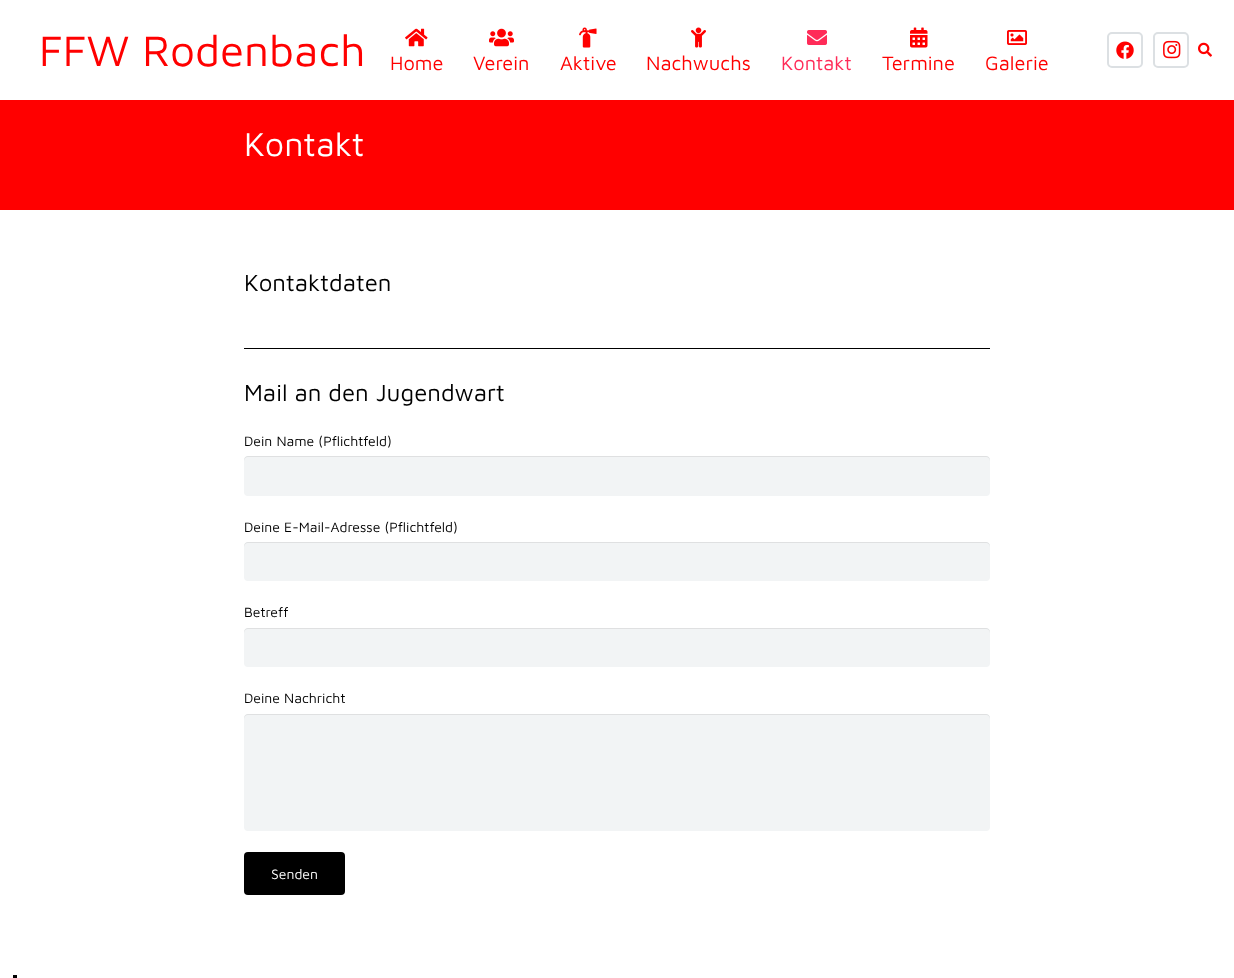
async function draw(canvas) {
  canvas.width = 1234
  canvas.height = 978
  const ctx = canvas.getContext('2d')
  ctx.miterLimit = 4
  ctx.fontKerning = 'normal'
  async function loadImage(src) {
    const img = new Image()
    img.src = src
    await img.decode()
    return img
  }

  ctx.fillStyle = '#fff'
  ctx.fillRect(0, 0, 1234, 978)
  ctx.font = '44px Maven Pro'
  ctx.fillStyle = '#f00'
  ctx.fillText('FFW Rodenbach', 39, 66)
  ctx.drawImage(await loadImage('image0.png'), 405, 28, 23, 19)
  ctx.font = '20px Maven Pro'
  ctx.fillText('Home', 390, 70)
  ctx.drawImage(await loadImage('image1.png'), 489, 28, 25, 19)
  ctx.fillText('Verein', 473, 70)
  ctx.drawImage(await loadImage('image2.png'), 579, 27, 18, 21)
  ctx.fillText('Aktive', 560, 70)
  ctx.drawImage(await loadImage('image3.png'), 691, 27, 15, 21)
  ctx.fillText('Nachwuchs', 646, 70)
  ctx.drawImage(await loadImage('image4.png'), 807, 30, 20, 15)
  ctx.fillStyle = '#ff2b58'
  ctx.fillText('Kontakt', 781, 70)
  ctx.drawImage(await loadImage('image5.png'), 910, 27, 18, 21)
  ctx.fillStyle = '#f00'
  ctx.fillText('Termine', 882, 70)
  ctx.drawImage(await loadImage('image6.png'), 1007, 30, 20, 15)
  ctx.fillText('Galerie', 985, 70)
  ctx.beginPath()
  ctx.roundRect(1108, 33, 34, 34, 4)
  ctx.strokeStyle = '#dce0e3'
  ctx.lineWidth = 2
  ctx.stroke()
  ctx.drawImage(await loadImage('image7.png'), 1116, 41, 18, 18)
  ctx.beginPath()
  ctx.roundRect(1154, 33, 34, 34, 4)
  ctx.stroke()
  ctx.drawImage(await loadImage('image8.png'), 1163, 40, 18, 19)
  ctx.drawImage(await loadImage('image9.png'), 1198, 42, 14, 15)
  ctx.fillRect(0, 100, 1234, 110)
  ctx.font = '34px Maven Pro'
  ctx.fillStyle = '#fff'
  ctx.fillText('Kontakt', 244, 156)
  ctx.font = '24px Maven Pro'
  ctx.fillStyle = '#000'
  ctx.fillText('Kontaktdaten', 244, 291)
  ctx.fillRect(244, 348, 746, 1)
  ctx.fillText('Mail an den Jugendwart', 244, 401)
  ctx.font = '14px Maven Pro'
  ctx.fillText('Dein Name (Pflichtfeld)', 244, 446)
  ctx.fillStyle = '#f2f4f5'
  ctx.beginPath()
  ctx.roundRect(244, 456, 746, 40, 4)
  ctx.fill()
  ctx.fillStyle = '#00000014'
  ctx.beginPath()
  ctx.moveTo(248, 457)
  ctx.lineTo(986, 457)
  ctx.bezierCurveTo(988, 457, 990, 459, 990, 461)
  ctx.lineTo(990, 460)
  ctx.bezierCurveTo(990, 458, 988, 456, 986, 456)
  ctx.lineTo(248, 456)
  ctx.bezierCurveTo(246, 456, 244, 458, 244, 460)
  ctx.lineTo(244, 461)
  ctx.bezierCurveTo(244, 459, 246, 457, 248, 457)
  ctx.closePath()
  ctx.fill()
  ctx.fillStyle = '#000'
  ctx.fillText('Deine E-Mail-Adresse (Pflichtfeld)', 244, 532)
  ctx.fillStyle = '#f2f4f5'
  ctx.beginPath()
  ctx.roundRect(244, 542, 746, 39, 4)
  ctx.fill()
  ctx.fillStyle = '#00000014'
  ctx.beginPath()
  ctx.moveTo(248, 543)
  ctx.lineTo(986, 543)
  ctx.bezierCurveTo(988, 543, 990, 545, 990, 547)
  ctx.lineTo(990, 546)
  ctx.bezierCurveTo(990, 544, 988, 542, 986, 542)
  ctx.lineTo(248, 542)
  ctx.bezierCurveTo(246, 542, 244, 544, 244, 546)
  ctx.lineTo(244, 547)
  ctx.bezierCurveTo(244, 545, 246, 543, 248, 543)
  ctx.closePath()
  ctx.fill()
  ctx.fillStyle = '#000'
  ctx.fillText('Betreff', 244, 617)
  ctx.fillStyle = '#f2f4f5'
  ctx.beginPath()
  ctx.roundRect(244, 628, 746, 39, 4)
  ctx.fill()
  ctx.fillStyle = '#00000014'
  ctx.beginPath()
  ctx.moveTo(248, 629)
  ctx.lineTo(986, 629)
  ctx.bezierCurveTo(988, 629, 990, 631, 990, 633)
  ctx.lineTo(990, 632)
  ctx.bezierCurveTo(990, 630, 988, 628, 986, 628)
  ctx.lineTo(248, 628)
  ctx.bezierCurveTo(246, 628, 244, 630, 244, 632)
  ctx.lineTo(244, 633)
  ctx.bezierCurveTo(244, 631, 246, 629, 248, 629)
  ctx.closePath()
  ctx.fill()
  ctx.fillStyle = '#000'
  ctx.fillText('Deine Nachricht', 244, 703)
  ctx.fillStyle = '#f2f4f5'
  ctx.beginPath()
  ctx.roundRect(244, 714, 746, 117, 4)
  ctx.fill()
  ctx.fillStyle = '#00000014'
  ctx.beginPath()
  ctx.moveTo(248, 715)
  ctx.lineTo(986, 715)
  ctx.bezierCurveTo(988, 715, 990, 717, 990, 719)
  ctx.lineTo(990, 718)
  ctx.bezierCurveTo(990, 716, 988, 714, 986, 714)
  ctx.lineTo(248, 714)
  ctx.bezierCurveTo(246, 714, 244, 716, 244, 718)
  ctx.lineTo(244, 719)
  ctx.bezierCurveTo(244, 717, 246, 715, 248, 715)
  ctx.closePath()
  ctx.fill()
  ctx.fillStyle = '#000'
  ctx.beginPath()
  ctx.roundRect(244, 852, 101, 43, 4)
  ctx.fill()
  ctx.fillStyle = '#fff'
  ctx.fillText('Senden', 271, 879)
  ctx.fillStyle = '#000'
  ctx.fillRect(13, 975, 4, 3)
}

draw(document.querySelector('canvas'))
